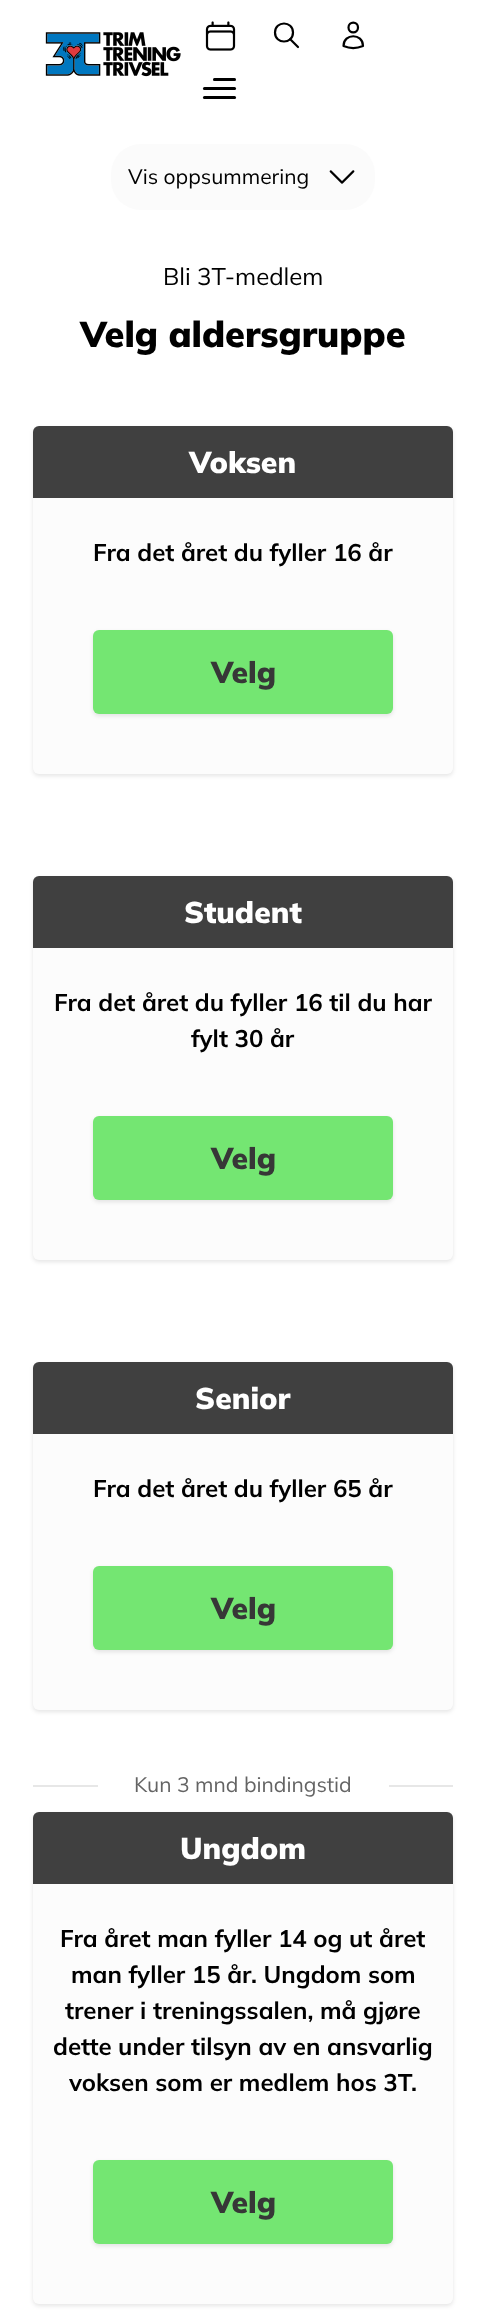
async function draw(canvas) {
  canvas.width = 485
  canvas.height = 2314
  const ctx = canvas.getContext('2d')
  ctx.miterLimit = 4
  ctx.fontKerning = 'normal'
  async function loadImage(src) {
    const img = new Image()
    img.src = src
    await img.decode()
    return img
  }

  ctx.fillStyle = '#fff'
  ctx.fillRect(0, 0, 485, 2314)
  ctx.drawImage(await loadImage('image0.png'), 45, 32, 136, 45)
  ctx.drawImage(await loadImage('image1.png'), 205, 21, 31, 30)
  ctx.beginPath()
  ctx.moveTo(298, 47)
  ctx.lineTo(290, 39)
  ctx.moveTo(293, 32.5)
  ctx.bezierCurveTo(293, 44.5, 275, 44.5, 275, 32.5)
  ctx.bezierCurveTo(275, 20.5, 293, 20.5, 293, 32.5)
  ctx.closePath()
  ctx.strokeStyle = '#000'
  ctx.lineWidth = 2.2
  ctx.lineCap = 'round'
  ctx.lineJoin = 'round'
  ctx.stroke()
  ctx.beginPath()
  ctx.moveTo(358, 27.5)
  ctx.bezierCurveTo(358, 34, 348.5, 34, 348.5, 27.5)
  ctx.bezierCurveTo(348.5, 21, 358, 21, 358, 27.5)
  ctx.closePath()
  ctx.moveTo(343.5, 46)
  ctx.bezierCurveTo(343.5, 33, 363, 33, 363, 46)
  ctx.bezierCurveTo(357, 48.5, 349.5, 48.5, 343.5, 46)
  ctx.closePath()
  ctx.stroke()
  ctx.fillStyle = '#000'
  ctx.beginPath()
  ctx.roundRect(213, 78, 23, 3, 1.5)
  ctx.fill()
  ctx.fillStyle = '#00000040'
  ctx.beginPath()
  ctx.roundRect(213, 78, 23, 3, 1.5)
  ctx.fill()
  ctx.fillStyle = '#000'
  ctx.beginPath()
  ctx.roundRect(203, 87, 33, 3, 1.5)
  ctx.fill()
  ctx.fillStyle = '#00000040'
  ctx.beginPath()
  ctx.roundRect(203, 87, 33, 3, 1.5)
  ctx.fill()
  ctx.fillStyle = '#000'
  ctx.beginPath()
  ctx.roundRect(203, 96, 33, 3, 1.5)
  ctx.fill()
  ctx.fillStyle = '#00000040'
  ctx.beginPath()
  ctx.roundRect(203, 96, 33, 3, 1.5)
  ctx.fill()
  ctx.fillStyle = '#fbfbfb'
  ctx.beginPath()
  ctx.roundRect(111, 144, 264, 66, 30)
  ctx.fill()
  ctx.font = '21px Mulish'
  ctx.fillStyle = '#000'
  ctx.fillText('Vis oppsummering', 128, 184)
  ctx.drawImage(await loadImage('image2.png'), 329, 170, 26, 14)
  ctx.font = '24px Mulish'
  ctx.fillText('Bli 3T-medlem', 163, 285)
  ctx.font = '900 36px Mulish'
  ctx.fillText('Velg aldersgruppe', 80, 347)
  ctx.fillStyle = '#0000001a'
  ctx.filter = 'blur(2px)'
  ctx.beginPath()
  ctx.roundRect(33, 428, 420, 348, 6)
  ctx.fill()
  ctx.filter = 'none'
  ctx.fillStyle = '#fcfcfc'
  ctx.beginPath()
  ctx.roundRect(33, 426, 420, 348, 6)
  ctx.fill()
  ctx.fillStyle = '#404040'
  ctx.beginPath()
  ctx.roundRect(33, 426, 420, 72, [6, 6, 0, 0])
  ctx.fill()
  ctx.font = '900 30px Mulish'
  ctx.fillStyle = '#fff'
  ctx.fillText('Voksen', 189, 473)
  ctx.font = 'bold 24px Mulish'
  ctx.fillStyle = '#000'
  ctx.fillText('Fra det året du fyller 16 år', 93, 561)
  ctx.fillStyle = '#0000001a'
  ctx.filter = 'blur(2px)'
  ctx.beginPath()
  ctx.roundRect(93, 632, 300, 84, 6)
  ctx.fill()
  ctx.filter = 'none'
  ctx.fillStyle = '#74e672'
  ctx.beginPath()
  ctx.roundRect(93, 630, 300, 84, 6)
  ctx.fill()
  ctx.font = '900 30px Mulish'
  ctx.fillStyle = '#373737'
  ctx.fillText('Velg', 211, 683)
  ctx.fillStyle = '#0000001a'
  ctx.filter = 'blur(2px)'
  ctx.beginPath()
  ctx.roundRect(33, 878, 420, 384, 6)
  ctx.fill()
  ctx.filter = 'none'
  ctx.fillStyle = '#fcfcfc'
  ctx.beginPath()
  ctx.roundRect(33, 876, 420, 384, 6)
  ctx.fill()
  ctx.fillStyle = '#404040'
  ctx.beginPath()
  ctx.roundRect(33, 876, 420, 72, [6, 6, 0, 0])
  ctx.fill()
  ctx.fillStyle = '#fff'
  ctx.fillText('Student', 184, 923)
  ctx.font = 'bold 24px Mulish'
  ctx.fillStyle = '#000'
  ctx.fillText('Fra det året du fyller 16 til du har', 54, 1011)
  ctx.fillText('fylt 30 år', 191, 1047)
  ctx.fillStyle = '#0000001a'
  ctx.filter = 'blur(2px)'
  ctx.beginPath()
  ctx.roundRect(93, 1118, 300, 84, 6)
  ctx.fill()
  ctx.filter = 'none'
  ctx.fillStyle = '#74e672'
  ctx.beginPath()
  ctx.roundRect(93, 1116, 300, 84, 6)
  ctx.fill()
  ctx.font = '900 30px Mulish'
  ctx.fillStyle = '#373737'
  ctx.fillText('Velg', 211, 1169)
  ctx.fillStyle = '#0000001a'
  ctx.filter = 'blur(2px)'
  ctx.beginPath()
  ctx.roundRect(33, 1364, 420, 348, 6)
  ctx.fill()
  ctx.filter = 'none'
  ctx.fillStyle = '#fcfcfc'
  ctx.beginPath()
  ctx.roundRect(33, 1362, 420, 348, 6)
  ctx.fill()
  ctx.fillStyle = '#404040'
  ctx.beginPath()
  ctx.roundRect(33, 1362, 420, 72, [6, 6, 0, 0])
  ctx.fill()
  ctx.fillStyle = '#fff'
  ctx.fillText('Senior', 195, 1409)
  ctx.font = 'bold 24px Mulish'
  ctx.fillStyle = '#000'
  ctx.fillText('Fra det året du fyller 65 år', 93, 1497)
  ctx.fillStyle = '#0000001a'
  ctx.filter = 'blur(2px)'
  ctx.beginPath()
  ctx.roundRect(93, 1568, 300, 84, 6)
  ctx.fill()
  ctx.filter = 'none'
  ctx.fillStyle = '#74e672'
  ctx.beginPath()
  ctx.roundRect(93, 1566, 300, 84, 6)
  ctx.fill()
  ctx.font = '900 30px Mulish'
  ctx.fillStyle = '#373737'
  ctx.fillText('Velg', 211, 1619)
  ctx.fillStyle = '#e7e7e7'
  ctx.fillRect(33, 1785, 65, 2)
  ctx.font = '21px Mulish'
  ctx.fillStyle = '#646464'
  ctx.fillText('Kun 3 mnd bindingstid', 134, 1792)
  ctx.fillStyle = '#e7e7e7'
  ctx.fillRect(389, 1785, 64, 2)
  ctx.fillStyle = '#0000001a'
  ctx.filter = 'blur(2px)'
  ctx.beginPath()
  ctx.roundRect(33, 1814, 420, 492, 6)
  ctx.fill()
  ctx.filter = 'none'
  ctx.fillStyle = '#fcfcfc'
  ctx.beginPath()
  ctx.roundRect(33, 1812, 420, 492, 6)
  ctx.fill()
  ctx.fillStyle = '#404040'
  ctx.beginPath()
  ctx.roundRect(33, 1812, 420, 72, [6, 6, 0, 0])
  ctx.fill()
  ctx.font = '900 30px Mulish'
  ctx.fillStyle = '#fff'
  ctx.fillText('Ungdom', 180, 1859)
  ctx.font = 'bold 24px Mulish'
  ctx.fillStyle = '#000'
  ctx.fillText('Fra året man fyller 14 og ut året', 60, 1947)
  ctx.fillText('man fyller 15 år. Ungdom som', 71, 1983)
  ctx.fillText('trener i treningssalen, må gjøre', 65, 2019)
  ctx.fillText('dette under tilsyn av en ansvarlig', 53, 2055)
  ctx.fillText('voksen som er medlem hos 3T.', 69, 2091)
  ctx.fillStyle = '#0000001a'
  ctx.filter = 'blur(2px)'
  ctx.beginPath()
  ctx.roundRect(93, 2162, 300, 84, 6)
  ctx.fill()
  ctx.filter = 'none'
  ctx.fillStyle = '#74e672'
  ctx.beginPath()
  ctx.roundRect(93, 2160, 300, 84, 6)
  ctx.fill()
  ctx.font = '900 30px Mulish'
  ctx.fillStyle = '#373737'
  ctx.fillText('Velg', 211, 2213)
}

draw(document.querySelector('canvas'))
